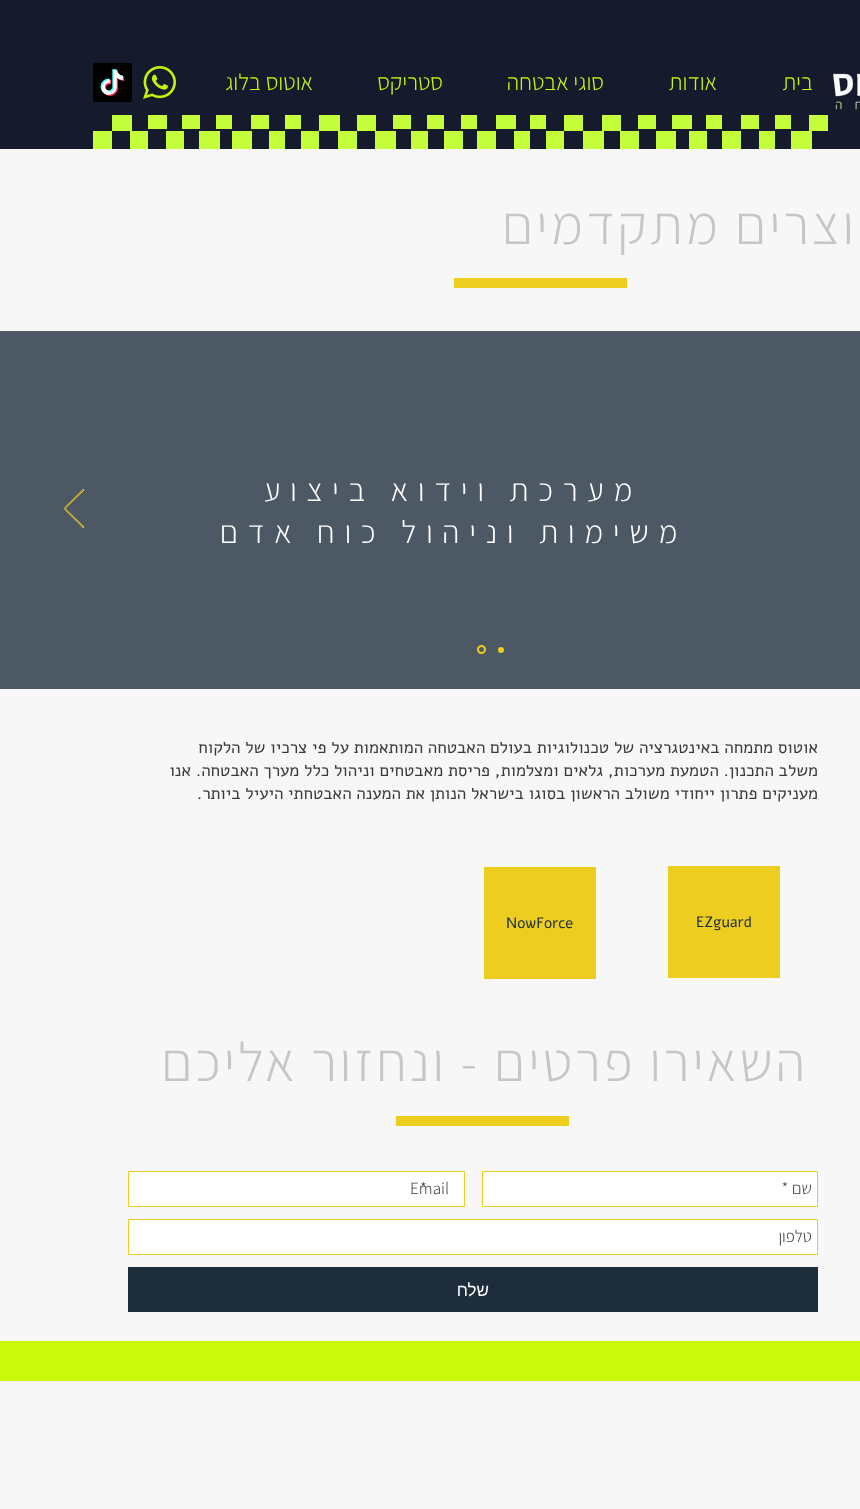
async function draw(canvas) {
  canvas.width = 860
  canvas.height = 1509
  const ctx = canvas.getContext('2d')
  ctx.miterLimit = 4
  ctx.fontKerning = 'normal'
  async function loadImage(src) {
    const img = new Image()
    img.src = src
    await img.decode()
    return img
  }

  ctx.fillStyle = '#f7f7f7'
  ctx.fillRect(0, 0, 860, 1509)
  ctx.fillStyle = '#151a2c'
  ctx.fillRect(0, 0, 860, 149)
  ctx.drawImage(await loadImage('image0.png'), 833, 73, 27, 37)
  ctx.direction = 'rtl'
  ctx.font = '300 23px Assistant'
  ctx.fillStyle = '#cafa0a'
  ctx.fillText('בית', 813, 90)
  ctx.fillText('אודות', 717, 90)
  ctx.fillText('סוגי אבטחה', 604, 90)
  ctx.fillText('סטריקס', 443, 90)
  ctx.fillText('אוטוס בלוג', 313, 90)
  ctx.drawImage(await loadImage('image1.png'), 143, 66, 33, 33)
  ctx.drawImage(await loadImage('image2.png'), 93, 63, 39, 39)
  ctx.fillStyle = '#c4fd39'
  ctx.fillRect(809, 115, 19, 16)
  ctx.fillRect(775, 115, 16, 14)
  ctx.fillRect(741, 115, 18, 14)
  ctx.fillRect(706, 115, 16, 14)
  ctx.fillRect(672, 115, 20, 14)
  ctx.fillRect(638, 115, 18, 14)
  ctx.fillRect(602, 115, 19, 16)
  ctx.fillRect(564, 115, 19, 16)
  ctx.fillRect(530, 115, 16, 14)
  ctx.fillRect(496, 115, 20, 14)
  ctx.fillRect(461, 115, 16, 14)
  ctx.fillRect(427, 115, 17, 14)
  ctx.fillRect(393, 115, 18, 14)
  ctx.fillRect(357, 115, 19, 16)
  ctx.fillRect(319, 115, 21, 16)
  ctx.fillRect(285, 115, 16, 14)
  ctx.fillRect(251, 115, 18, 14)
  ctx.fillRect(216, 115, 16, 14)
  ctx.fillRect(182, 115, 18, 14)
  ctx.fillRect(148, 115, 19, 14)
  ctx.fillRect(112, 115, 20, 16)
  ctx.fillRect(791, 131, 21, 18)
  ctx.fillRect(759, 131, 16, 18)
  ctx.fillRect(722, 131, 19, 18)
  ctx.fillRect(689, 131, 18, 18)
  ctx.fillRect(656, 131, 20, 18)
  ctx.fillRect(620, 131, 19, 18)
  ctx.fillRect(583, 131, 21, 18)
  ctx.fillRect(546, 131, 18, 18)
  ctx.fillRect(514, 131, 16, 18)
  ctx.fillRect(477, 131, 19, 18)
  ctx.fillRect(444, 131, 19, 18)
  ctx.fillRect(411, 131, 17, 18)
  ctx.fillRect(375, 131, 21, 18)
  ctx.fillRect(338, 131, 19, 18)
  ctx.fillRect(301, 131, 18, 18)
  ctx.fillRect(269, 131, 16, 18)
  ctx.fillRect(232, 131, 20, 18)
  ctx.fillRect(199, 131, 21, 18)
  ctx.fillRect(166, 131, 18, 18)
  ctx.fillRect(130, 131, 18, 18)
  ctx.fillRect(93, 131, 19, 18)
  ctx.letterSpacing = '2.75px'
  ctx.font = '300 55px Assistant'
  ctx.fillStyle = '#c6c6c6'
  ctx.fillText('מוצרים מתקדמים', 892, 244)
  ctx.fillStyle = '#edcd1f'
  ctx.fillRect(454, 278, 173, 10)
  ctx.fillStyle = '#4c5863'
  ctx.fillRect(0, 331, 860, 358)
  ctx.letterSpacing = '9.6px'
  ctx.font = '300 32px Assistant'
  ctx.fillStyle = '#fff'
  ctx.fillText('מערכת וידוא ביצוע', 642, 501)
  ctx.fillText('משימות וניהול כוח אדם', 687, 543)
  ctx.save()
  ctx.beginPath()
  ctx.rect(64, 489, 20, 39)
  ctx.clip()
  ctx.beginPath()
  ctx.moveTo(83.5, 528)
  ctx.lineTo(64, 508.5)
  ctx.lineTo(83.5, 489)
  ctx.lineTo(84, 490)
  ctx.lineTo(65, 508.5)
  ctx.lineTo(84, 527)
  ctx.closePath()
  ctx.strokeStyle = '#edcd1f'
  ctx.stroke()
  ctx.restore()
  ctx.fillStyle = '#edcd1f'
  ctx.beginPath()
  ctx.arc(501, 650, 3, 0, 2 * Math.PI)
  ctx.fill()
  ctx.beginPath()
  ctx.arc(481.5, 649.5, 3.5, 0, 2 * Math.PI)
  ctx.strokeStyle = '#edcd1f'
  ctx.lineWidth = 2
  ctx.stroke()
  ctx.letterSpacing = '0px'
  ctx.font = '17px Alef'
  ctx.fillStyle = '#3b3a3a'
  ctx.fillText('אוטוס מתמחה באינטגרציה של טכנולוגיות בעולם האבטחה המותאמות על פי צרכיו של הלקוח', 818, 753)
  ctx.fillText('משלב התכנון. הטמעת מערכות, גלאים ומצלמות, פריסת מאבטחים וניהול כלל מערך האבטחה. אנו', 818, 776)
  ctx.fillText('מעניקים פתרון ייחודי משולב הראשון בסוגו בישראל הנותן את המענה האבטחתי היעיל ביותר.', 818, 799)
  ctx.fillStyle = '#edcd1f'
  ctx.fillRect(668, 866, 112, 112)
  ctx.direction = 'ltr'
  ctx.font = '15px Alef'
  ctx.fillStyle = '#1e2d3b'
  ctx.fillText('EZguard', 696, 927)
  ctx.fillStyle = '#edcd1f'
  ctx.fillRect(484, 867, 112, 112)
  ctx.fillStyle = '#1e2d3b'
  ctx.fillText('NowForce', 506, 928)
  ctx.letterSpacing = '2.75px'
  ctx.direction = 'rtl'
  ctx.font = '300 55px Assistant'
  ctx.fillStyle = '#c6c6c6'
  ctx.fillText('השאירו פרטים - ונחזור אליכם', 808, 1081)
  ctx.fillStyle = '#edcd1f'
  ctx.fillRect(396, 1116, 173, 10)
  ctx.fillStyle = '#fff'
  ctx.beginPath()
  ctx.rect(482.5, 1171.5, 335, 35)
  ctx.fill()
  ctx.lineWidth = 1
  ctx.stroke()
  ctx.letterSpacing = '0px'
  ctx.font = '300 17px Assistant'
  ctx.fillStyle = '#3b3a3a'
  ctx.fillText('שם *', 812, 1194)
  ctx.fillStyle = '#fff'
  ctx.beginPath()
  ctx.rect(128.5, 1171.5, 336, 35)
  ctx.fill()
  ctx.stroke()
  ctx.direction = 'ltr'
  ctx.fillStyle = '#3b3a3a'
  ctx.fillText('Email', 410, 1194)
  ctx.fillText('*', 420, 1194)
  ctx.fillStyle = '#fff'
  ctx.beginPath()
  ctx.rect(128.5, 1219.5, 689, 35)
  ctx.fill()
  ctx.stroke()
  ctx.direction = 'rtl'
  ctx.fillStyle = '#3b3a3a'
  ctx.fillText('טלפון', 812, 1242)
  ctx.fillStyle = '#1e2d3b'
  ctx.fillRect(128, 1267, 690, 45)
  ctx.font = '17px Liberation Sans'
  ctx.fillStyle = '#fff'
  ctx.fillText('שלח', 489, 1296)
  ctx.fillStyle = '#cafa0a'
  ctx.fillRect(0, 1341, 860, 40)
}

draw(document.querySelector('canvas'))
